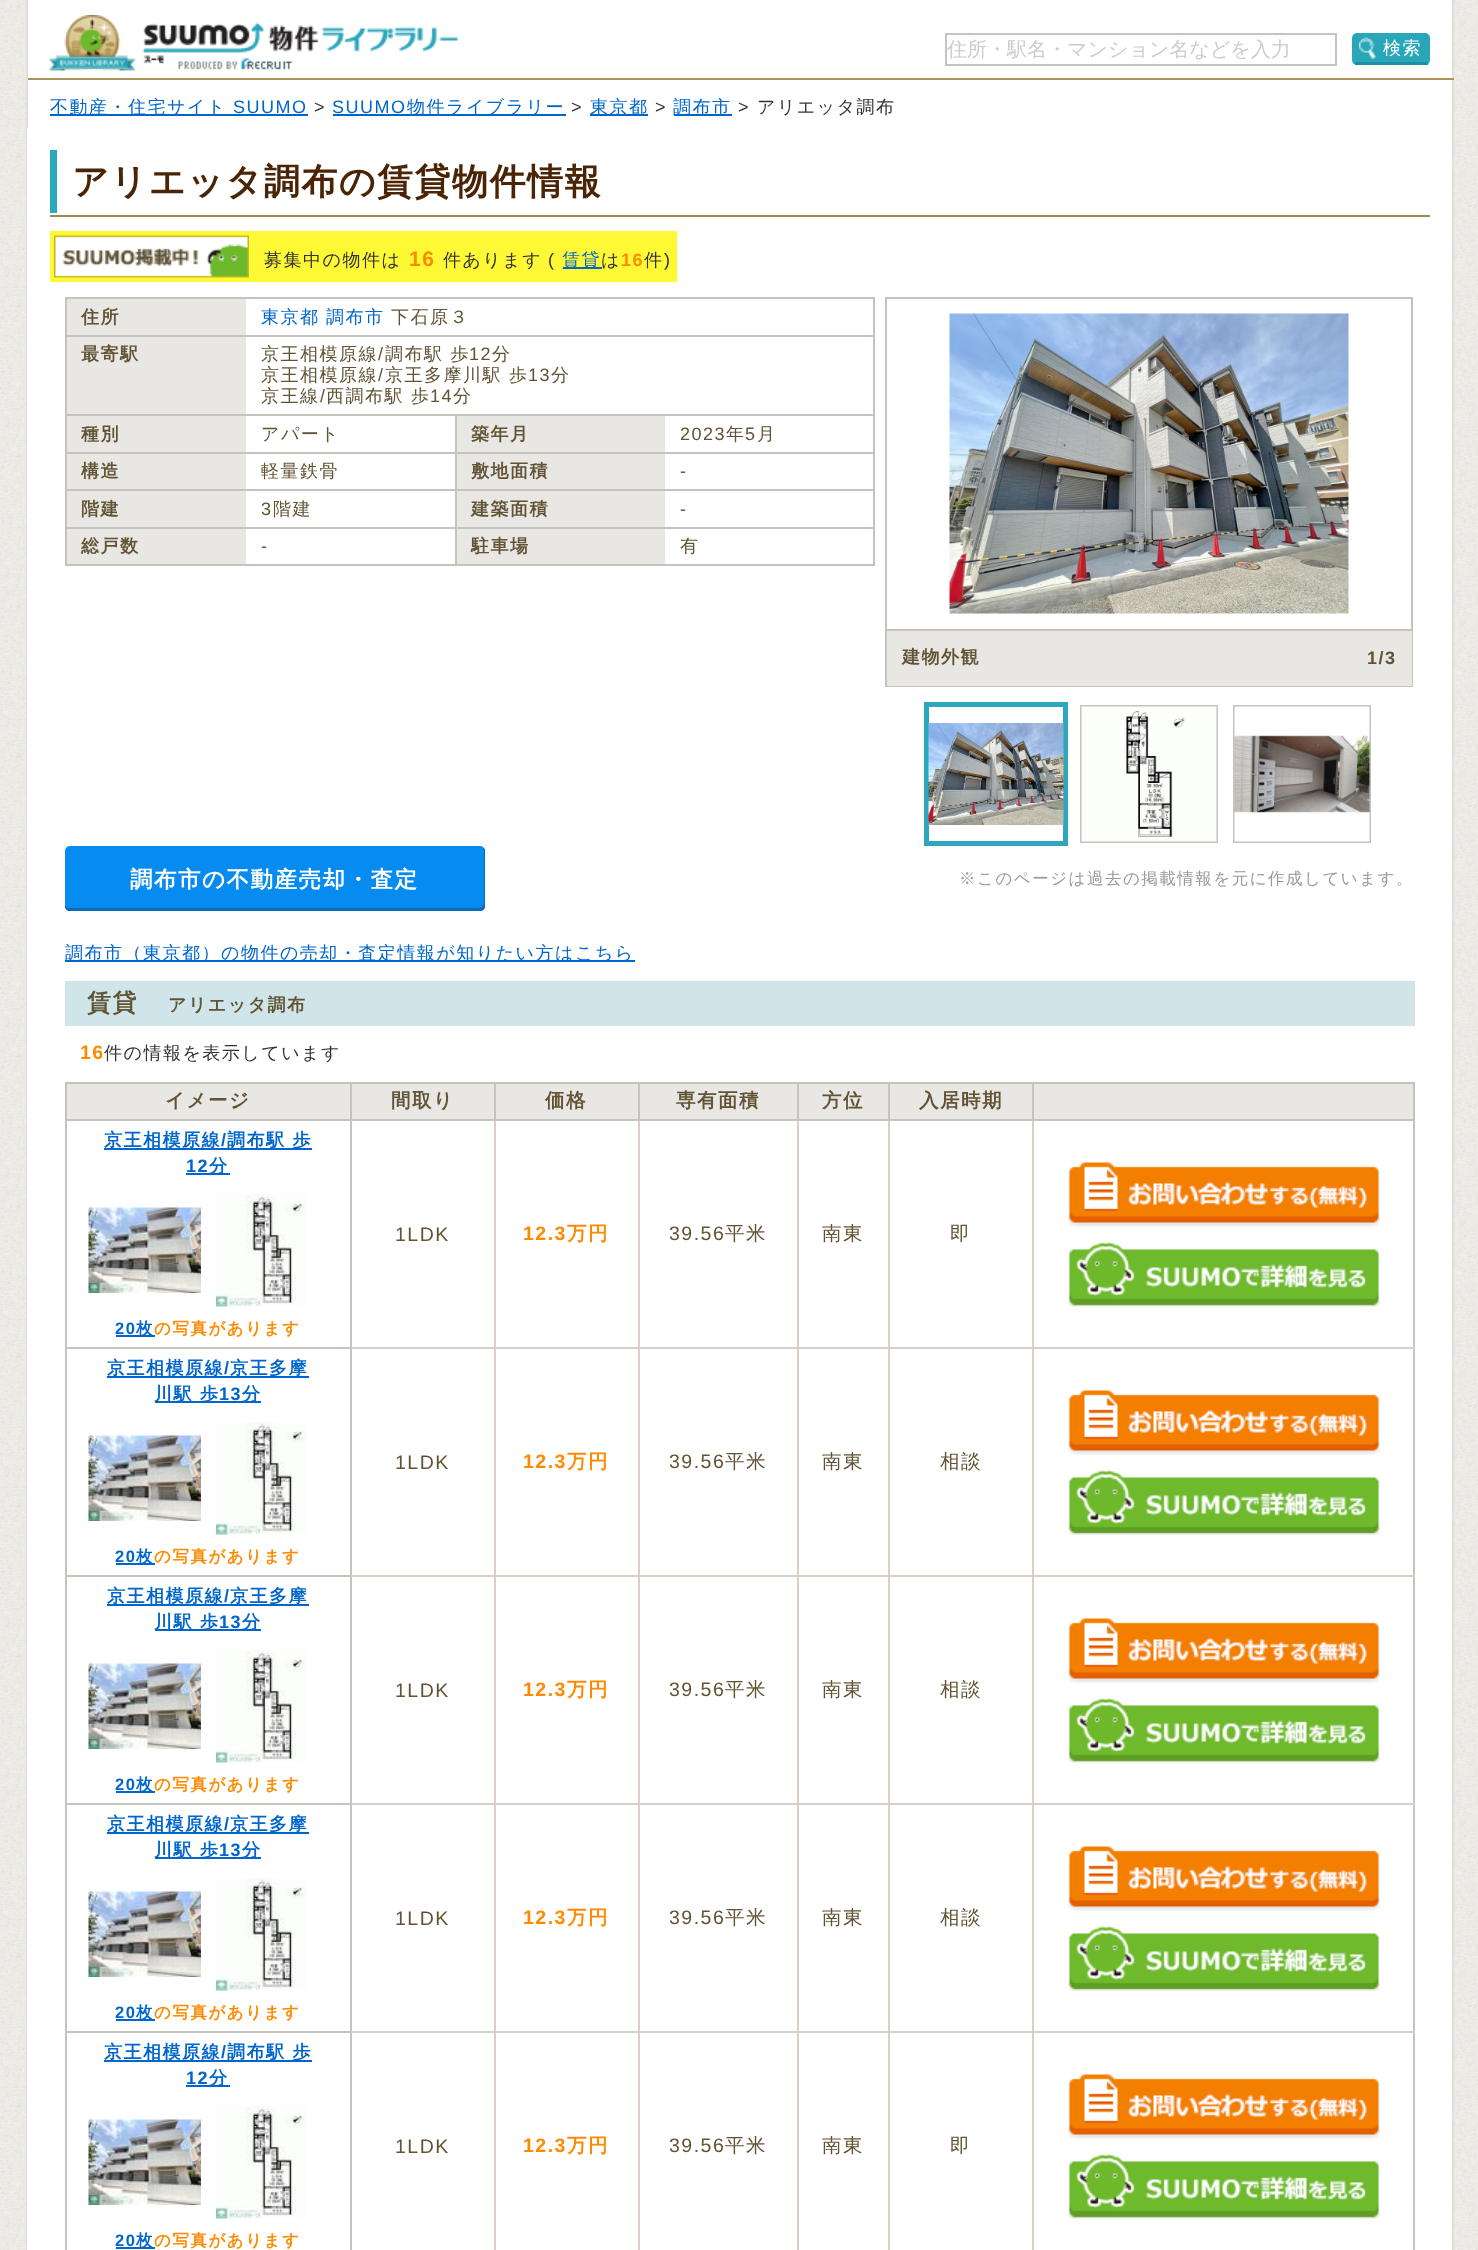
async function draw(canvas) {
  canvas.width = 1478
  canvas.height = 2250
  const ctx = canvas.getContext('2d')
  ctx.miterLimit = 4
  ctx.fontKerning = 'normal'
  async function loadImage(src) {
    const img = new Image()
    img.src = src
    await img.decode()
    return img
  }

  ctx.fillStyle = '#fff'
  ctx.fillRect(0, 0, 1478, 2250)
  ctx.drawImage(await loadImage('image0.png'), 0, 0, 1478, 2250)
  ctx.fillRect(28, 0, 1424, 78)
  ctx.fillStyle = '#e1dfdb'
  ctx.fillRect(1452, 0, 2, 2250)
  ctx.fillStyle = '#ac945b'
  ctx.fillRect(26, 78, 1428, 2)
  ctx.fillStyle = '#e1dfdb'
  ctx.fillRect(26, 0, 2, 128)
  ctx.drawImage(await loadImage('image1.png'), 49, 15, 409, 56)
  ctx.strokeStyle = '#c4c4c4'
  ctx.lineWidth = 2
  ctx.strokeRect(946, 34, 390, 31)
  ctx.font = '500 20px WenQuanYi Zen Hei'
  ctx.fillStyle = '#ccc'
  ctx.fillText('住所・駅名・マンション名などを入力', 947, 56)
  ctx.fillStyle = '#29a6b9'
  ctx.beginPath()
  ctx.roundRect(1352, 33, 78, 32, 5)
  ctx.fill()
  ctx.fillStyle = '#1a91a3'
  ctx.fillRect(1355, 62, 73, 3)
  ctx.drawImage(await loadImage('image2.png'), 1359, 37, 17, 22)
  ctx.letterSpacing = '1.5px'
  ctx.font = '500 18px WenQuanYi Zen Hei'
  ctx.fillStyle = '#fff'
  ctx.fillText('検索', 1383, 54)
  ctx.fillRect(28, 80, 1424, 48)
  ctx.fillStyle = '#06c'
  ctx.fillRect(50, 114, 258, 2)
  ctx.fillText('不動産・住宅サイト', 50, 113)
  ctx.font = '18px Liberation Sans'
  ctx.fillText('SUUMO', 233, 113)
  ctx.fillStyle = '#333'
  ctx.fillText('>', 314, 113)
  ctx.fillStyle = '#06c'
  ctx.fillText('SUUMO', 332, 113)
  ctx.fillRect(333, 114, 233, 2)
  ctx.font = '500 18px WenQuanYi Zen Hei'
  ctx.fillText('物件ライブラリー', 407, 113)
  ctx.font = '18px Liberation Sans'
  ctx.fillStyle = '#333'
  ctx.fillText('>', 571, 113)
  ctx.fillStyle = '#06c'
  ctx.fillRect(590, 114, 58, 2)
  ctx.font = '500 18px WenQuanYi Zen Hei'
  ctx.fillText('東京都', 590, 113)
  ctx.font = '18px Liberation Sans'
  ctx.fillStyle = '#333'
  ctx.fillText('>', 655, 113)
  ctx.fillStyle = '#06c'
  ctx.fillRect(674, 114, 58, 2)
  ctx.font = '500 18px WenQuanYi Zen Hei'
  ctx.fillText('調布市', 673, 113)
  ctx.font = '18px Liberation Sans'
  ctx.fillStyle = '#333'
  ctx.fillText('>', 738, 113)
  ctx.font = '500 18px WenQuanYi Zen Hei'
  ctx.fillText('アリエッタ調布', 757, 113)
  ctx.fillStyle = '#e1dfdb'
  ctx.fillRect(26, 128, 1, 2122)
  ctx.fillStyle = '#fff'
  ctx.fillRect(27, 128, 1425, 2122)
  ctx.fillStyle = '#9f8751'
  ctx.fillRect(50, 215, 1380, 2)
  ctx.fillStyle = '#2da7be'
  ctx.fillRect(50, 150, 7, 63)
  ctx.font = 'bold 36px WenQuanYi Zen Hei'
  ctx.fillStyle = '#4a2405'
  ctx.fillText('アリエッタ調布の賃貸物件情報', 72, 194)
  ctx.fillStyle = '#fff835'
  ctx.fillRect(50, 231, 627, 51)
  ctx.drawImage(await loadImage('image3.png'), 54, 235, 195, 43)
  ctx.font = '500 18px WenQuanYi Zen Hei'
  ctx.fillStyle = '#333'
  ctx.fillText('募集中の物件は', 264, 266)
  ctx.font = 'bold 21px Liberation Sans'
  ctx.fillStyle = '#ff8a00'
  ctx.fillText('16', 409, 266)
  ctx.font = '500 18px WenQuanYi Zen Hei'
  ctx.fillStyle = '#333'
  ctx.fillText('件あります', 443, 266)
  ctx.font = '18px Liberation Sans'
  ctx.fillText('(', 548, 266)
  ctx.fillStyle = '#06c'
  ctx.fillRect(563, 267, 39, 2)
  ctx.font = '500 18px WenQuanYi Zen Hei'
  ctx.fillText('賃貸', 562, 266)
  ctx.fillStyle = '#333'
  ctx.fillText('は', 601, 266)
  ctx.font = 'bold 18px Liberation Sans'
  ctx.fillStyle = '#ff8a00'
  ctx.fillText('16', 621, 266)
  ctx.font = '500 18px WenQuanYi Zen Hei'
  ctx.fillStyle = '#333'
  ctx.fillText('件', 644, 266)
  ctx.font = '18px Liberation Sans'
  ctx.fillText(')', 664, 266)
  ctx.fillStyle = '#c6c3bc'
  ctx.fillRect(65, 297, 810, 2)
  ctx.fillRect(873, 297, 2, 269)
  ctx.fillRect(65, 564, 810, 2)
  ctx.fillRect(65, 297, 2, 269)
  ctx.fillStyle = '#e8e7e4'
  ctx.fillRect(67, 299, 179, 36)
  ctx.font = 'bold 18px WenQuanYi Zen Hei'
  ctx.fillStyle = '#615334'
  ctx.fillText('住所', 81, 323)
  ctx.font = '500 18px WenQuanYi Zen Hei'
  ctx.fillStyle = '#06c'
  ctx.fillText('東京都', 261, 323)
  ctx.fillText('調布市', 326, 323)
  ctx.fillStyle = '#615334'
  ctx.fillText('下石原３', 391, 323)
  ctx.fillStyle = '#e8e7e4'
  ctx.fillRect(67, 337, 179, 77)
  ctx.font = 'bold 18px WenQuanYi Zen Hei'
  ctx.fillStyle = '#615334'
  ctx.fillText('最寄駅', 81, 360)
  ctx.fillStyle = '#c6c3bc'
  ctx.fillRect(65, 335, 810, 2)
  ctx.font = '500 18px WenQuanYi Zen Hei'
  ctx.fillStyle = '#615334'
  ctx.fillText('京王相模原線', 261, 360)
  ctx.font = '18px Liberation Sans'
  ctx.fillText('/', 378, 360)
  ctx.font = '500 18px WenQuanYi Zen Hei'
  ctx.fillText('調布駅 歩', 385, 360)
  ctx.font = '18px Liberation Sans'
  ctx.fillText('12', 469, 360)
  ctx.font = '500 18px WenQuanYi Zen Hei'
  ctx.fillText('分', 492, 360)
  ctx.fillText('京王相模原線', 261, 381)
  ctx.font = '18px Liberation Sans'
  ctx.fillText('/', 378, 381)
  ctx.font = '500 18px WenQuanYi Zen Hei'
  ctx.fillText('京王多摩川駅 歩', 385, 381)
  ctx.font = '18px Liberation Sans'
  ctx.fillText('13', 528, 381)
  ctx.font = '500 18px WenQuanYi Zen Hei'
  ctx.fillText('分', 551, 381)
  ctx.fillText('京王線', 261, 402)
  ctx.font = '18px Liberation Sans'
  ctx.fillText('/', 320, 402)
  ctx.font = '500 18px WenQuanYi Zen Hei'
  ctx.fillText('西調布駅 歩', 326, 402)
  ctx.font = '18px Liberation Sans'
  ctx.fillText('14', 430, 402)
  ctx.font = '500 18px WenQuanYi Zen Hei'
  ctx.fillText('分', 453, 402)
  ctx.fillStyle = '#e8e7e4'
  ctx.fillRect(67, 416, 179, 36)
  ctx.font = 'bold 18px WenQuanYi Zen Hei'
  ctx.fillStyle = '#615334'
  ctx.fillText('種別', 81, 440)
  ctx.fillStyle = '#c6c3bc'
  ctx.fillRect(455, 414, 420, 2)
  ctx.fillRect(455, 452, 420, 2)
  ctx.fillRect(455, 489, 420, 2)
  ctx.fillRect(455, 527, 420, 2)
  ctx.fillRect(455, 527, 2, 39)
  ctx.fillRect(65, 527, 391, 2)
  ctx.fillRect(455, 489, 2, 39)
  ctx.fillRect(65, 489, 391, 2)
  ctx.fillRect(455, 452, 2, 39)
  ctx.fillRect(65, 452, 391, 2)
  ctx.fillRect(455, 414, 2, 39)
  ctx.fillRect(65, 414, 391, 2)
  ctx.font = '500 18px WenQuanYi Zen Hei'
  ctx.fillStyle = '#615334'
  ctx.fillText('アパート', 261, 440)
  ctx.fillStyle = '#e8e7e4'
  ctx.fillRect(457, 416, 208, 36)
  ctx.font = 'bold 18px WenQuanYi Zen Hei'
  ctx.fillStyle = '#615334'
  ctx.fillText('築年月', 471, 440)
  ctx.font = '18px Liberation Sans'
  ctx.fillText('2023', 680, 440)
  ctx.font = '500 18px WenQuanYi Zen Hei'
  ctx.fillText('年', 726, 440)
  ctx.font = '18px Liberation Sans'
  ctx.fillText('5', 745, 440)
  ctx.font = '500 18px WenQuanYi Zen Hei'
  ctx.fillText('月', 757, 440)
  ctx.fillStyle = '#e8e7e4'
  ctx.fillRect(67, 454, 179, 35)
  ctx.font = 'bold 18px WenQuanYi Zen Hei'
  ctx.fillStyle = '#615334'
  ctx.fillText('構造', 81, 477)
  ctx.font = '500 18px WenQuanYi Zen Hei'
  ctx.fillText('軽量鉄骨', 261, 477)
  ctx.fillStyle = '#e8e7e4'
  ctx.fillRect(457, 454, 208, 35)
  ctx.font = 'bold 18px WenQuanYi Zen Hei'
  ctx.fillStyle = '#615334'
  ctx.fillText('敷地面積', 471, 477)
  ctx.font = '18px Liberation Sans'
  ctx.fillText('‐', 680, 477)
  ctx.fillStyle = '#e8e7e4'
  ctx.fillRect(67, 491, 179, 36)
  ctx.font = 'bold 18px WenQuanYi Zen Hei'
  ctx.fillStyle = '#615334'
  ctx.fillText('階建', 81, 515)
  ctx.font = '18px Liberation Sans'
  ctx.fillText('3', 261, 515)
  ctx.font = '500 18px WenQuanYi Zen Hei'
  ctx.fillText('階建', 273, 515)
  ctx.fillStyle = '#e8e7e4'
  ctx.fillRect(457, 491, 208, 36)
  ctx.font = 'bold 18px WenQuanYi Zen Hei'
  ctx.fillStyle = '#615334'
  ctx.fillText('建築面積', 471, 515)
  ctx.font = '18px Liberation Sans'
  ctx.fillText('‐', 680, 515)
  ctx.fillStyle = '#e8e7e4'
  ctx.fillRect(67, 529, 179, 35)
  ctx.font = 'bold 18px WenQuanYi Zen Hei'
  ctx.fillStyle = '#615334'
  ctx.fillText('総戸数', 81, 552)
  ctx.font = '18px Liberation Sans'
  ctx.fillText('‐', 261, 552)
  ctx.fillStyle = '#e8e7e4'
  ctx.fillRect(457, 529, 208, 35)
  ctx.font = 'bold 18px WenQuanYi Zen Hei'
  ctx.fillStyle = '#615334'
  ctx.fillText('駐車場', 471, 552)
  ctx.font = '500 18px WenQuanYi Zen Hei'
  ctx.fillText('有', 680, 552)
  ctx.strokeStyle = '#c6c3bc'
  ctx.strokeRect(886, 298, 526, 388)
  ctx.drawImage(await loadImage('image4.png'), 949, 313, 400, 301)
  ctx.fillStyle = '#e8e7e4'
  ctx.fillRect(887, 631, 525, 55)
  ctx.fillStyle = '#c6c3bc'
  ctx.fillRect(887, 629, 525, 2)
  ctx.font = 'bold 18px WenQuanYi Zen Hei'
  ctx.fillStyle = '#615334'
  ctx.fillText('建物外観', 902, 663)
  ctx.font = 'bold 18px Liberation Sans'
  ctx.fillText('1/3', 1367, 664)
  ctx.strokeStyle = '#2da7be'
  ctx.lineWidth = 3
  ctx.strokeRect(925.5, 703.5, 141, 141)
  ctx.lineWidth = 2
  ctx.strokeRect(928, 706, 136, 136)
  ctx.drawImage(await loadImage('image5.png'), 928, 723, 136, 102)
  ctx.strokeStyle = '#c6c3bc'
  ctx.strokeRect(1081, 706, 136, 136)
  ctx.drawImage(await loadImage('image6.png'), 1081, 706, 136, 136)
  ctx.strokeRect(1234, 706, 136, 136)
  ctx.drawImage(await loadImage('image7.png'), 1234, 706, 136, 136)
  ctx.fillStyle = '#068bf1'
  ctx.beginPath()
  ctx.roundRect(65, 846, 420, 65, 5)
  ctx.fill()
  ctx.fillStyle = '#0b6cba'
  ctx.beginPath()
  ctx.moveTo(65, 905)
  ctx.lineTo(65, 906)
  ctx.bezierCurveTo(65, 909, 67, 911, 70, 911)
  ctx.lineTo(480, 911)
  ctx.bezierCurveTo(483, 911, 485, 909, 485, 906)
  ctx.lineTo(485, 851)
  ctx.bezierCurveTo(485, 850, 485, 849, 484, 848)
  ctx.lineTo(484, 903)
  ctx.bezierCurveTo(484, 905, 482, 908, 480, 908)
  ctx.lineTo(69, 908)
  ctx.bezierCurveTo(68, 908, 66, 907, 65, 905)
  ctx.closePath()
  ctx.fill()
  ctx.font = 'bold 22.5px WenQuanYi Zen Hei'
  ctx.fillStyle = '#fff'
  ctx.fillText('調布市の不動産売却・査定', 130, 887)
  ctx.font = '500 16.5px WenQuanYi Zen Hei'
  ctx.fillStyle = '#999'
  ctx.fillText('※このページは過去の掲載情報を元に作成しています。', 959, 884)
  ctx.fillStyle = '#06c'
  ctx.fillRect(65, 960, 570, 2)
  ctx.font = '500 18px WenQuanYi Zen Hei'
  ctx.fillText('調布市（東京都）の物件の売却・査定情報が知りたい方はこちら', 65, 959)
  ctx.fillStyle = '#cfe5e9'
  ctx.fillRect(65, 981, 1350, 45)
  ctx.font = 'bold 24px WenQuanYi Zen Hei'
  ctx.fillStyle = '#615334'
  ctx.fillText('賃貸', 87, 1011)
  ctx.font = 'bold 18px WenQuanYi Zen Hei'
  ctx.fillText('アリエッタ調布', 168, 1011)
  ctx.font = 'bold 19.5px Liberation Sans'
  ctx.fillStyle = '#ff8a00'
  ctx.fillText('16', 80, 1059)
  ctx.font = '500 18px WenQuanYi Zen Hei'
  ctx.fillStyle = '#333'
  ctx.fillText('件の情報を表示しています', 104, 1059)
  ctx.fillStyle = '#c6c3bc'
  ctx.fillRect(65, 1082, 1350, 2)
  ctx.fillRect(1413, 1082, 2, 1168)
  ctx.fillRect(65, 1082, 2, 1168)
  ctx.fillStyle = '#e8e7e4'
  ctx.fillRect(67, 1084, 283, 35)
  ctx.font = 'bold 19.5px WenQuanYi Zen Hei'
  ctx.fillStyle = '#615334'
  ctx.fillText('イメージ', 165, 1107)
  ctx.fillStyle = '#e8e7e4'
  ctx.fillRect(352, 1084, 142, 35)
  ctx.fillStyle = '#c6c3bc'
  ctx.fillRect(350, 1119, 1065, 2)
  ctx.fillStyle = '#dccfc8'
  ctx.fillRect(1032, 2031, 2, 219)
  ctx.fillRect(1032, 2031, 383, 2)
  ctx.fillRect(1032, 1803, 2, 230)
  ctx.fillRect(1032, 1803, 383, 2)
  ctx.fillRect(1032, 1575, 2, 230)
  ctx.fillRect(1032, 1575, 383, 2)
  ctx.fillRect(1032, 1347, 2, 230)
  ctx.fillRect(1032, 1347, 383, 2)
  ctx.fillRect(1032, 1119, 2, 230)
  ctx.fillRect(888, 2031, 2, 219)
  ctx.fillRect(888, 2031, 146, 2)
  ctx.fillRect(888, 1803, 2, 230)
  ctx.fillRect(888, 1803, 146, 2)
  ctx.fillRect(888, 1575, 2, 230)
  ctx.fillRect(888, 1575, 146, 2)
  ctx.fillRect(888, 1347, 2, 230)
  ctx.fillRect(888, 1347, 146, 2)
  ctx.fillRect(888, 1119, 2, 230)
  ctx.fillRect(797, 2031, 2, 219)
  ctx.fillRect(797, 2031, 93, 2)
  ctx.fillRect(797, 1803, 2, 230)
  ctx.fillRect(797, 1803, 93, 2)
  ctx.fillRect(797, 1575, 2, 230)
  ctx.fillRect(797, 1575, 93, 2)
  ctx.fillRect(797, 1347, 2, 230)
  ctx.fillRect(797, 1347, 93, 2)
  ctx.fillRect(797, 1119, 2, 230)
  ctx.fillRect(638, 2031, 2, 219)
  ctx.fillRect(638, 2031, 160, 2)
  ctx.fillRect(638, 1803, 2, 230)
  ctx.fillRect(638, 1803, 160, 2)
  ctx.fillRect(638, 1575, 2, 230)
  ctx.fillRect(638, 1575, 160, 2)
  ctx.fillRect(638, 1347, 2, 230)
  ctx.fillRect(638, 1347, 160, 2)
  ctx.fillRect(638, 1119, 2, 230)
  ctx.fillRect(494, 2031, 2, 219)
  ctx.fillRect(494, 2031, 145, 2)
  ctx.fillRect(494, 1803, 2, 230)
  ctx.fillRect(494, 1803, 145, 2)
  ctx.fillRect(494, 1575, 2, 230)
  ctx.fillRect(494, 1575, 145, 2)
  ctx.fillRect(494, 1347, 2, 230)
  ctx.fillRect(494, 1347, 145, 2)
  ctx.fillRect(494, 1119, 2, 230)
  ctx.fillStyle = '#c6c3bc'
  ctx.fillRect(350, 2031, 2, 219)
  ctx.fillRect(65, 2031, 286, 2)
  ctx.fillStyle = '#dccfc8'
  ctx.fillRect(350, 2031, 145, 2)
  ctx.fillStyle = '#c6c3bc'
  ctx.fillRect(350, 1803, 2, 230)
  ctx.fillRect(65, 1803, 286, 2)
  ctx.fillStyle = '#dccfc8'
  ctx.fillRect(350, 1803, 145, 2)
  ctx.fillStyle = '#c6c3bc'
  ctx.fillRect(350, 1575, 2, 230)
  ctx.fillRect(65, 1575, 286, 2)
  ctx.fillStyle = '#dccfc8'
  ctx.fillRect(350, 1575, 145, 2)
  ctx.fillStyle = '#c6c3bc'
  ctx.fillRect(350, 1347, 2, 230)
  ctx.fillRect(65, 1347, 286, 2)
  ctx.fillStyle = '#dccfc8'
  ctx.fillRect(350, 1347, 145, 2)
  ctx.fillStyle = '#c6c3bc'
  ctx.fillRect(350, 1119, 2, 230)
  ctx.fillRect(65, 1119, 286, 2)
  ctx.fillRect(350, 1082, 2, 39)
  ctx.fillStyle = '#615334'
  ctx.fillText('間取り', 391, 1107)
  ctx.fillStyle = '#e8e7e4'
  ctx.fillRect(496, 1084, 142, 35)
  ctx.fillStyle = '#c6c3bc'
  ctx.fillRect(494, 1082, 2, 39)
  ctx.fillStyle = '#615334'
  ctx.fillText('価格', 545, 1107)
  ctx.fillStyle = '#e8e7e4'
  ctx.fillRect(640, 1084, 157, 35)
  ctx.fillStyle = '#c6c3bc'
  ctx.fillRect(638, 1082, 2, 39)
  ctx.fillStyle = '#615334'
  ctx.fillText('専有面積', 676, 1107)
  ctx.fillStyle = '#e8e7e4'
  ctx.fillRect(799, 1084, 89, 35)
  ctx.fillStyle = '#c6c3bc'
  ctx.fillRect(797, 1082, 2, 39)
  ctx.fillStyle = '#615334'
  ctx.fillText('方位', 822, 1107)
  ctx.fillStyle = '#e8e7e4'
  ctx.fillRect(890, 1084, 142, 35)
  ctx.fillStyle = '#c6c3bc'
  ctx.fillRect(888, 1082, 2, 39)
  ctx.fillStyle = '#615334'
  ctx.fillText('入居時期', 919, 1107)
  ctx.fillStyle = '#e8e7e4'
  ctx.fillRect(1034, 1084, 379, 35)
  ctx.fillStyle = '#c6c3bc'
  ctx.fillRect(1032, 1082, 2, 39)
  ctx.fillStyle = '#06c'
  ctx.fillRect(104, 1148, 208, 2)
  ctx.font = 'bold 18px WenQuanYi Zen Hei'
  ctx.fillText('京王相模原線', 104, 1146)
  ctx.font = 'bold 18px Liberation Sans'
  ctx.fillText('/', 221, 1146)
  ctx.font = 'bold 18px WenQuanYi Zen Hei'
  ctx.fillText('調布駅 歩', 227, 1146)
  ctx.font = 'bold 18px Liberation Sans'
  ctx.fillText('12', 186, 1172)
  ctx.fillRect(186, 1173, 44, 2)
  ctx.font = 'bold 18px WenQuanYi Zen Hei'
  ctx.fillText('分', 209, 1172)
  ctx.drawImage(await loadImage('image8.png'), 88, 1207, 113, 86)
  ctx.drawImage(await loadImage('image9.png'), 216, 1194, 91, 113)
  ctx.font = 'bold 16.5px Liberation Sans'
  ctx.fillText('20', 115, 1334)
  ctx.fillRect(116, 1335, 39, 2)
  ctx.font = 'bold 16.5px WenQuanYi Zen Hei'
  ctx.fillText('枚', 136, 1334)
  ctx.fillStyle = '#ff8a00'
  ctx.fillText('の写真があります', 154, 1334)
  ctx.drawImage(await loadImage('image10.png'), 1068, 1162, 312, 65)
  ctx.drawImage(await loadImage('image11.png'), 1068, 1242, 312, 65)
  ctx.font = '19.5px Liberation Sans'
  ctx.fillStyle = '#615334'
  ctx.fillText('1LDK', 395, 1241)
  ctx.font = 'bold 19.5px Liberation Sans'
  ctx.fillStyle = '#ff8a00'
  ctx.fillText('12.3', 523, 1240)
  ctx.font = 'bold 19.5px WenQuanYi Zen Hei'
  ctx.fillText('万円', 567, 1240)
  ctx.font = '19.5px Liberation Sans'
  ctx.fillStyle = '#615334'
  ctx.fillText('39.56', 669, 1240)
  ctx.font = '500 19.5px WenQuanYi Zen Hei'
  ctx.fillText('平米', 725, 1240)
  ctx.fillText('南東', 822, 1240)
  ctx.fillText('即', 950, 1240)
  ctx.fillStyle = '#06c'
  ctx.fillRect(107, 1376, 202, 2)
  ctx.font = 'bold 18px WenQuanYi Zen Hei'
  ctx.fillText('京王相模原線', 107, 1374)
  ctx.font = 'bold 18px Liberation Sans'
  ctx.fillText('/', 224, 1374)
  ctx.font = 'bold 18px WenQuanYi Zen Hei'
  ctx.fillText('京王多摩', 230, 1374)
  ctx.fillRect(155, 1401, 106, 2)
  ctx.fillText('川駅 歩', 154, 1400)
  ctx.font = 'bold 18px Liberation Sans'
  ctx.fillText('13', 219, 1400)
  ctx.font = 'bold 18px WenQuanYi Zen Hei'
  ctx.fillText('分', 242, 1400)
  ctx.drawImage(await loadImage('image8.png'), 88, 1435, 113, 86)
  ctx.drawImage(await loadImage('image9.png'), 216, 1422, 91, 113)
  ctx.font = 'bold 16.5px Liberation Sans'
  ctx.fillText('20', 115, 1562)
  ctx.fillRect(116, 1563, 39, 2)
  ctx.font = 'bold 16.5px WenQuanYi Zen Hei'
  ctx.fillText('枚', 136, 1562)
  ctx.fillStyle = '#ff8a00'
  ctx.fillText('の写真があります', 154, 1562)
  ctx.font = '19.5px Liberation Sans'
  ctx.fillStyle = '#615334'
  ctx.fillText('1LDK', 395, 1469)
  ctx.font = 'bold 19.5px Liberation Sans'
  ctx.fillStyle = '#ff8a00'
  ctx.fillText('12.3', 523, 1468)
  ctx.font = 'bold 19.5px WenQuanYi Zen Hei'
  ctx.fillText('万円', 567, 1468)
  ctx.font = '19.5px Liberation Sans'
  ctx.fillStyle = '#615334'
  ctx.fillText('39.56', 669, 1468)
  ctx.font = '500 19.5px WenQuanYi Zen Hei'
  ctx.fillText('平米', 725, 1468)
  ctx.fillText('南東', 822, 1468)
  ctx.fillText('相談', 940, 1468)
  ctx.drawImage(await loadImage('image10.png'), 1068, 1390, 312, 65)
  ctx.drawImage(await loadImage('image11.png'), 1068, 1470, 312, 65)
  ctx.fillStyle = '#06c'
  ctx.fillRect(107, 1604, 202, 2)
  ctx.font = 'bold 18px WenQuanYi Zen Hei'
  ctx.fillText('京王相模原線', 107, 1602)
  ctx.font = 'bold 18px Liberation Sans'
  ctx.fillText('/', 224, 1602)
  ctx.font = 'bold 18px WenQuanYi Zen Hei'
  ctx.fillText('京王多摩', 230, 1602)
  ctx.fillRect(155, 1629, 106, 2)
  ctx.fillText('川駅 歩', 154, 1628)
  ctx.font = 'bold 18px Liberation Sans'
  ctx.fillText('13', 219, 1628)
  ctx.font = 'bold 18px WenQuanYi Zen Hei'
  ctx.fillText('分', 242, 1628)
  ctx.drawImage(await loadImage('image8.png'), 88, 1663, 113, 86)
  ctx.drawImage(await loadImage('image9.png'), 216, 1650, 91, 113)
  ctx.font = 'bold 16.5px Liberation Sans'
  ctx.fillText('20', 115, 1790)
  ctx.fillRect(116, 1791, 39, 2)
  ctx.font = 'bold 16.5px WenQuanYi Zen Hei'
  ctx.fillText('枚', 136, 1790)
  ctx.fillStyle = '#ff8a00'
  ctx.fillText('の写真があります', 154, 1790)
  ctx.font = '19.5px Liberation Sans'
  ctx.fillStyle = '#615334'
  ctx.fillText('1LDK', 395, 1697)
  ctx.font = 'bold 19.5px Liberation Sans'
  ctx.fillStyle = '#ff8a00'
  ctx.fillText('12.3', 523, 1696)
  ctx.font = 'bold 19.5px WenQuanYi Zen Hei'
  ctx.fillText('万円', 567, 1696)
  ctx.font = '19.5px Liberation Sans'
  ctx.fillStyle = '#615334'
  ctx.fillText('39.56', 669, 1696)
  ctx.font = '500 19.5px WenQuanYi Zen Hei'
  ctx.fillText('平米', 725, 1696)
  ctx.fillText('南東', 822, 1696)
  ctx.fillText('相談', 940, 1696)
  ctx.drawImage(await loadImage('image10.png'), 1068, 1618, 312, 65)
  ctx.drawImage(await loadImage('image11.png'), 1068, 1698, 312, 65)
  ctx.fillStyle = '#06c'
  ctx.fillRect(107, 1832, 202, 2)
  ctx.font = 'bold 18px WenQuanYi Zen Hei'
  ctx.fillText('京王相模原線', 107, 1830)
  ctx.font = 'bold 18px Liberation Sans'
  ctx.fillText('/', 224, 1830)
  ctx.font = 'bold 18px WenQuanYi Zen Hei'
  ctx.fillText('京王多摩', 230, 1830)
  ctx.fillRect(155, 1857, 106, 2)
  ctx.fillText('川駅 歩', 154, 1856)
  ctx.font = 'bold 18px Liberation Sans'
  ctx.fillText('13', 219, 1856)
  ctx.font = 'bold 18px WenQuanYi Zen Hei'
  ctx.fillText('分', 242, 1856)
  ctx.drawImage(await loadImage('image8.png'), 88, 1891, 113, 86)
  ctx.drawImage(await loadImage('image9.png'), 216, 1878, 91, 113)
  ctx.font = 'bold 16.5px Liberation Sans'
  ctx.fillText('20', 115, 2018)
  ctx.fillRect(116, 2019, 39, 2)
  ctx.font = 'bold 16.5px WenQuanYi Zen Hei'
  ctx.fillText('枚', 136, 2018)
  ctx.fillStyle = '#ff8a00'
  ctx.fillText('の写真があります', 154, 2018)
  ctx.font = '19.5px Liberation Sans'
  ctx.fillStyle = '#615334'
  ctx.fillText('1LDK', 395, 1925)
  ctx.font = 'bold 19.5px Liberation Sans'
  ctx.fillStyle = '#ff8a00'
  ctx.fillText('12.3', 523, 1924)
  ctx.font = 'bold 19.5px WenQuanYi Zen Hei'
  ctx.fillText('万円', 567, 1924)
  ctx.font = '19.5px Liberation Sans'
  ctx.fillStyle = '#615334'
  ctx.fillText('39.56', 669, 1924)
  ctx.font = '500 19.5px WenQuanYi Zen Hei'
  ctx.fillText('平米', 725, 1924)
  ctx.fillText('南東', 822, 1924)
  ctx.fillText('相談', 940, 1924)
  ctx.drawImage(await loadImage('image10.png'), 1068, 1846, 312, 65)
  ctx.drawImage(await loadImage('image11.png'), 1068, 1926, 312, 65)
  ctx.fillStyle = '#06c'
  ctx.fillRect(104, 2060, 208, 2)
  ctx.font = 'bold 18px WenQuanYi Zen Hei'
  ctx.fillText('京王相模原線', 104, 2058)
  ctx.font = 'bold 18px Liberation Sans'
  ctx.fillText('/', 221, 2058)
  ctx.font = 'bold 18px WenQuanYi Zen Hei'
  ctx.fillText('調布駅 歩', 227, 2058)
  ctx.font = 'bold 18px Liberation Sans'
  ctx.fillText('12', 186, 2084)
  ctx.fillRect(186, 2085, 44, 2)
  ctx.font = 'bold 18px WenQuanYi Zen Hei'
  ctx.fillText('分', 209, 2084)
  ctx.drawImage(await loadImage('image8.png'), 88, 2119, 113, 86)
  ctx.drawImage(await loadImage('image9.png'), 216, 2106, 91, 113)
  ctx.font = 'bold 16.5px Liberation Sans'
  ctx.fillText('20', 115, 2246)
  ctx.fillRect(116, 2247, 39, 2)
  ctx.font = 'bold 16.5px WenQuanYi Zen Hei'
  ctx.fillText('枚', 136, 2246)
  ctx.fillStyle = '#ff8a00'
  ctx.fillText('の写真があります', 154, 2246)
  ctx.font = '19.5px Liberation Sans'
  ctx.fillStyle = '#615334'
  ctx.fillText('1LDK', 395, 2153)
  ctx.font = 'bold 19.5px Liberation Sans'
  ctx.fillStyle = '#ff8a00'
  ctx.fillText('12.3', 523, 2152)
  ctx.font = 'bold 19.5px WenQuanYi Zen Hei'
  ctx.fillText('万円', 567, 2152)
  ctx.font = '19.5px Liberation Sans'
  ctx.fillStyle = '#615334'
  ctx.fillText('39.56', 669, 2152)
  ctx.font = '500 19.5px WenQuanYi Zen Hei'
  ctx.fillText('平米', 725, 2152)
  ctx.fillText('南東', 822, 2152)
  ctx.fillText('即', 950, 2152)
  ctx.drawImage(await loadImage('image10.png'), 1068, 2074, 312, 65)
  ctx.drawImage(await loadImage('image11.png'), 1068, 2154, 312, 65)
}

draw(document.querySelector('canvas'))
